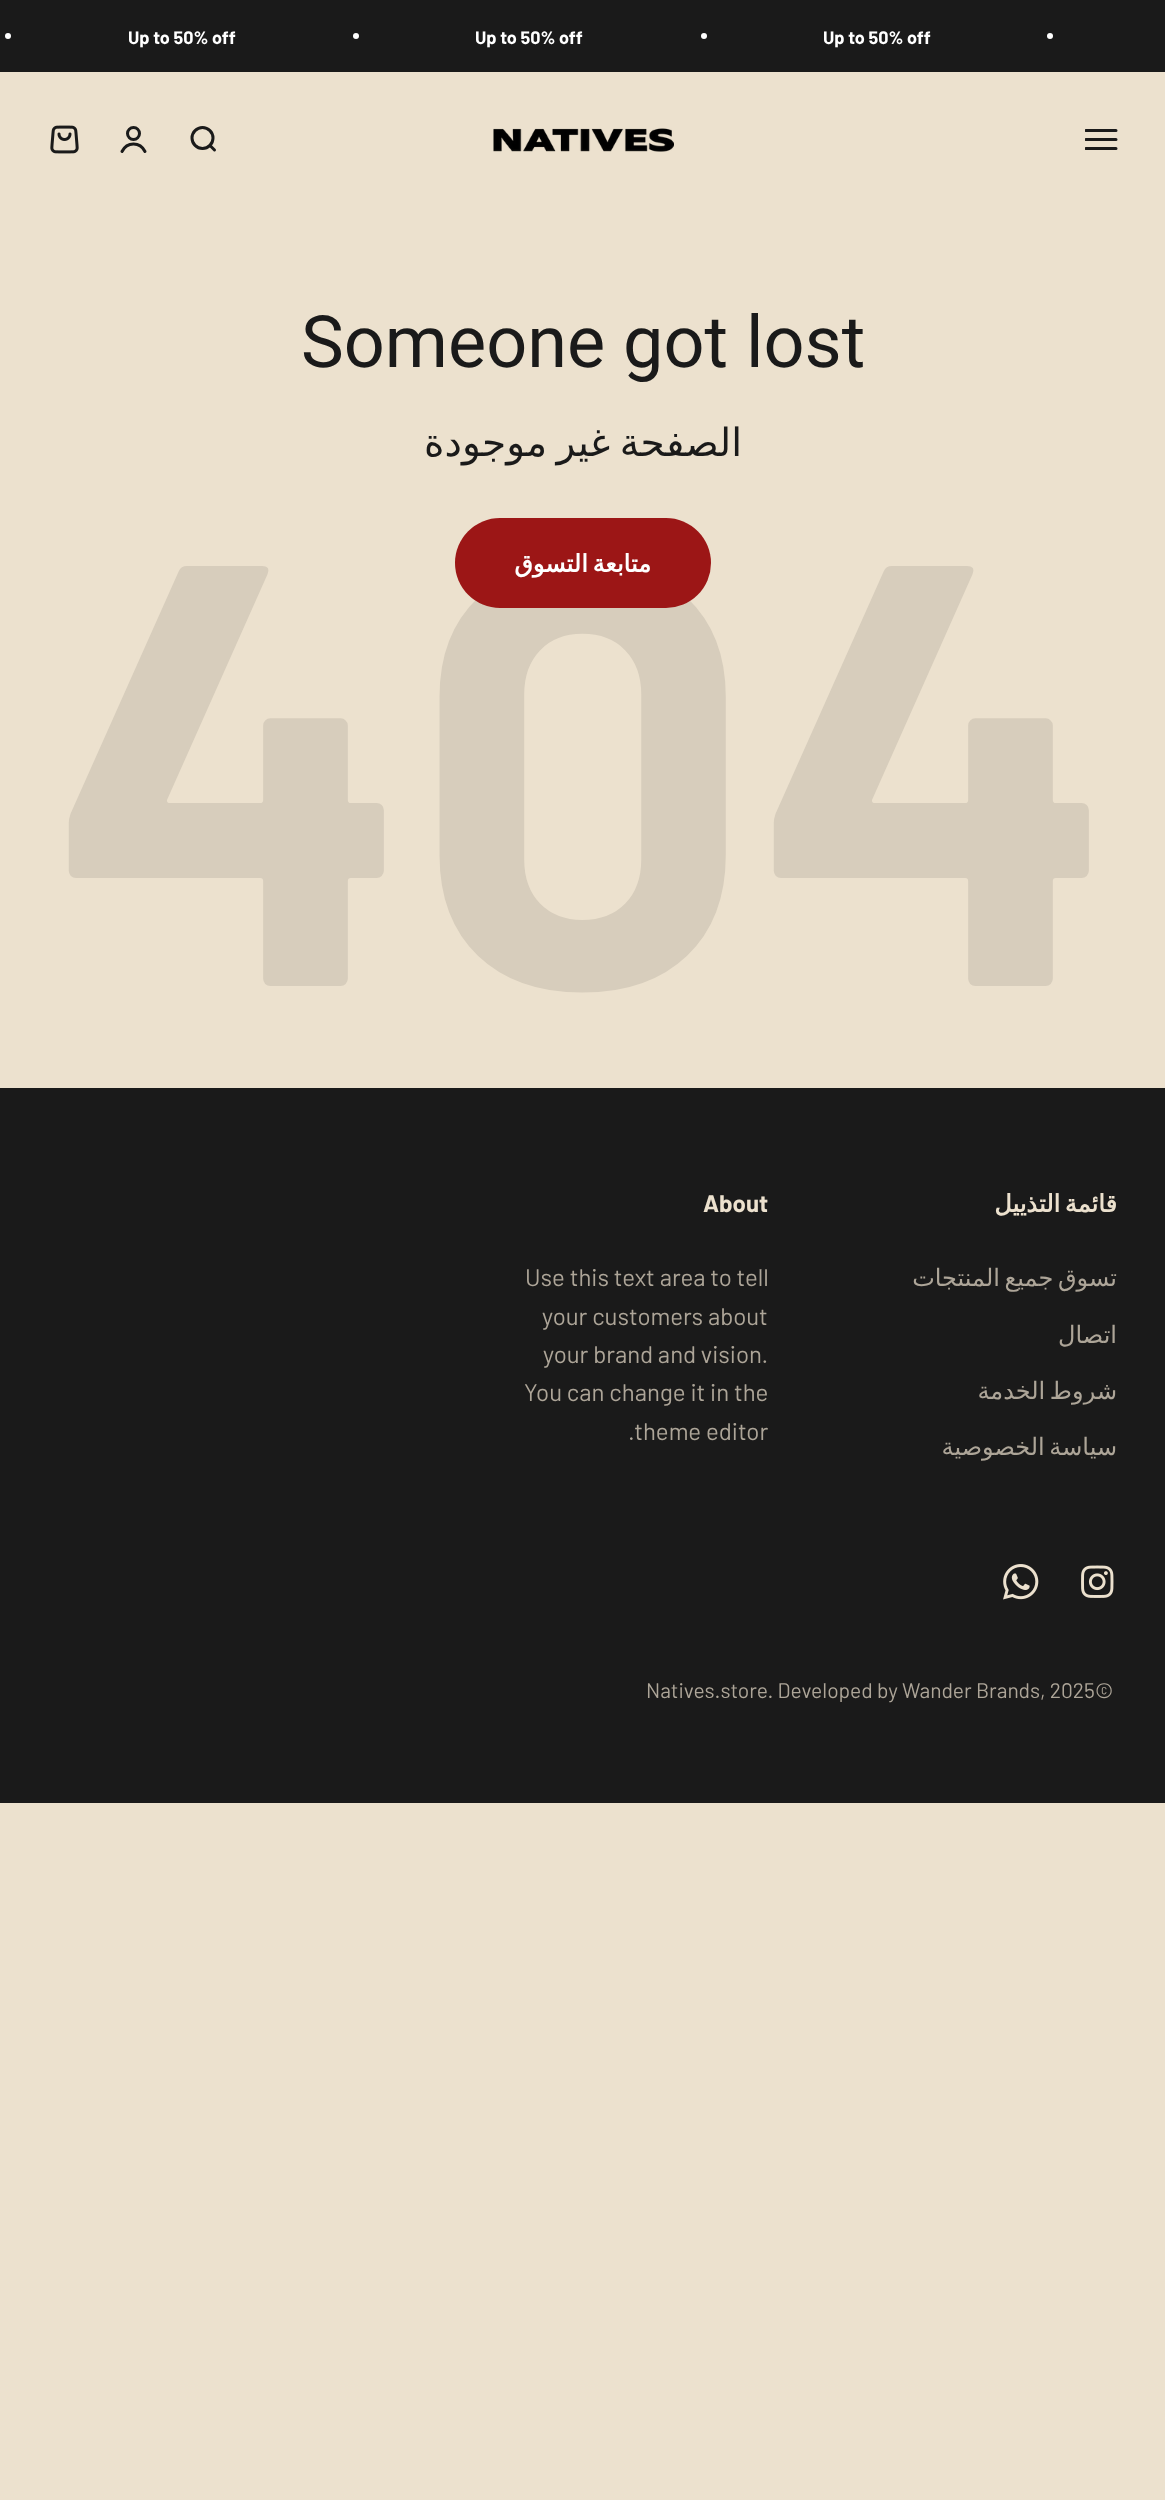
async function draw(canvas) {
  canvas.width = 1165
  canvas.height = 2500
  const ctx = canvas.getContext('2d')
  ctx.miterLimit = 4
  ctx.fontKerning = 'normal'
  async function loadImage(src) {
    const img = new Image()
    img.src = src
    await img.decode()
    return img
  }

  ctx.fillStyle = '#ece1ce'
  ctx.fillRect(0, 0, 1165, 2500)
  ctx.fillStyle = '#1a1a1a'
  ctx.fillRect(0, 0, 1165, 72)
  ctx.fillStyle = '#fff'
  ctx.beginPath()
  ctx.arc(8, 36, 3, 0, 2 * Math.PI)
  ctx.fill()
  ctx.font = 'bold 18px Barlow'
  ctx.fillText('Up to 50% off', 128, 44)
  ctx.beginPath()
  ctx.arc(356, 36, 3, 0, 2 * Math.PI)
  ctx.fill()
  ctx.fillText('Up to 50% off', 475, 44)
  ctx.beginPath()
  ctx.arc(704, 36, 3, 0, 2 * Math.PI)
  ctx.fill()
  ctx.fillText('Up to 50% off', 823, 44)
  ctx.beginPath()
  ctx.arc(1050, 36, 3, 0, 2 * Math.PI)
  ctx.fill()
  ctx.drawImage(await loadImage('image0.png'), 50, 125, 29, 29)
  ctx.beginPath()
  ctx.arc(133.5, 133.5, 6, 0, 2 * Math.PI)
  ctx.strokeStyle = '#1a1a1a'
  ctx.lineWidth = 3
  ctx.stroke()
  ctx.beginPath()
  ctx.moveTo(122, 151.5)
  ctx.bezierCurveTo(127, 141.5, 140, 141.5, 145, 151.5)
  ctx.lineCap = 'round'
  ctx.stroke()
  ctx.beginPath()
  ctx.arc(202.5, 138, 10.5, 0, 2 * Math.PI)
  ctx.stroke()
  ctx.beginPath()
  ctx.moveTo(210, 145.5)
  ctx.lineTo(214.5, 150)
  ctx.lineJoin = 'round'
  ctx.stroke()
  ctx.drawImage(await loadImage('image1.png'), 493, 128, 181, 24)
  ctx.save()
  ctx.beginPath()
  ctx.rect(1085, 123, 33, 33)
  ctx.clip()
  ctx.beginPath()
  ctx.moveTo(1086, 130.5)
  ctx.lineTo(1116, 130.5)
  ctx.moveTo(1086, 139.5)
  ctx.lineTo(1116, 139.5)
  ctx.moveTo(1086, 148.5)
  ctx.lineTo(1116, 148.5)
  ctx.lineJoin = 'miter'
  ctx.stroke()
  ctx.restore()
  ctx.font = '72px Roboto'
  ctx.fillStyle = '#1a1a1a'
  ctx.fillText('Someone got lost', 301, 367)
  ctx.wordSpacing = '-3px'
  ctx.direction = 'rtl'
  ctx.font = '39px DejaVu Sans'
  ctx.fillText('الصفحة غير موجودة', 742, 456)
  ctx.wordSpacing = '0px'
  ctx.direction = 'ltr'
  ctx.font = 'bold 600px Barlow'
  ctx.fillStyle = '#d7cdbc'
  ctx.fillText('404', 49, 986)
  ctx.fillStyle = '#9c1616'
  ctx.beginPath()
  ctx.roundRect(455, 518, 256, 90, 45)
  ctx.fill()
  ctx.wordSpacing = '-3px'
  ctx.direction = 'rtl'
  ctx.font = 'bold 24px DejaVu Sans'
  ctx.fillStyle = '#fff'
  ctx.fillText('متابعة التسوق', 651, 572)
  ctx.fillStyle = '#1a1a1a'
  ctx.fillRect(0, 1088, 1165, 715)
  ctx.wordSpacing = '0px'
  ctx.direction = 'ltr'
  ctx.font = 'bold 24px Barlow'
  ctx.fillStyle = '#ece1ce'
  ctx.fillText('About', 703, 1212)
  ctx.font = '24px Barlow'
  ctx.fillStyle = '#ada598'
  ctx.fillText('Use this text area to tell', 525, 1286)
  ctx.fillText('your customers about', 542, 1325)
  ctx.fillText('your brand and vision.', 543, 1363)
  ctx.fillText('You can change it in the', 524, 1401)
  ctx.fillText('.theme editor', 628, 1440)
  ctx.wordSpacing = '-3px'
  ctx.direction = 'rtl'
  ctx.font = 'bold 24px DejaVu Sans'
  ctx.fillStyle = '#ece1ce'
  ctx.fillText('قائمة التذييل', 1117, 1212)
  ctx.font = '24px DejaVu Sans'
  ctx.fillStyle = '#ada598'
  ctx.fillText('تسوق جميع المنتجات', 1117, 1286)
  ctx.wordSpacing = '0px'
  ctx.fillText('اتصال', 1117, 1343)
  ctx.wordSpacing = '-3px'
  ctx.fillText('شروط الخدمة', 1117, 1399)
  ctx.fillText('سياسة الخصوصية', 1117, 1455)
  ctx.drawImage(await loadImage('image2.png'), 1003, 1564, 36, 36)
  ctx.drawImage(await loadImage('image3.png'), 1081, 1565, 33, 33)
  ctx.wordSpacing = '0px'
  ctx.direction = 'ltr'
  ctx.font = '21px Barlow'
  ctx.fillText('Natives.store. Developed by Wander Brands', 646, 1698)
  ctx.fillText(', 2025©', 1040, 1698)
}

draw(document.querySelector('canvas'))
